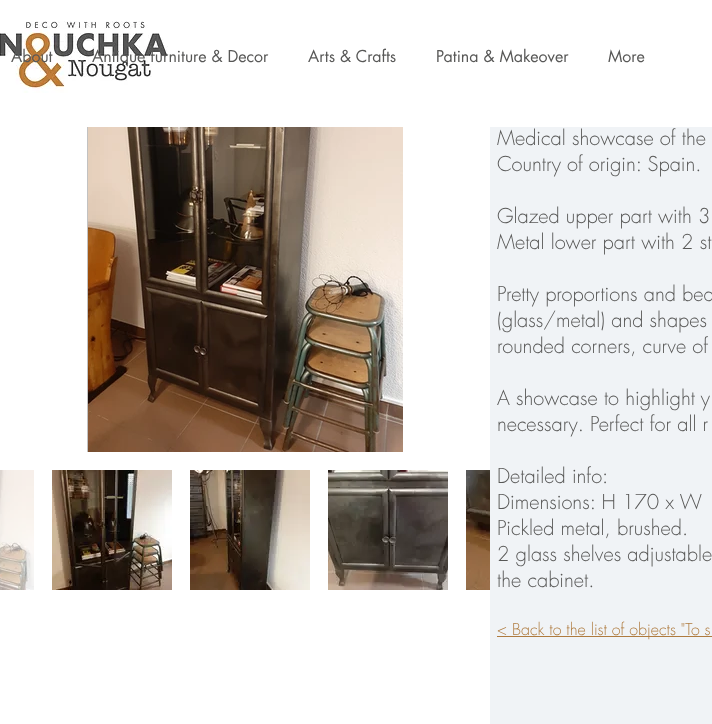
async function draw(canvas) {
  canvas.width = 712
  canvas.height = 724
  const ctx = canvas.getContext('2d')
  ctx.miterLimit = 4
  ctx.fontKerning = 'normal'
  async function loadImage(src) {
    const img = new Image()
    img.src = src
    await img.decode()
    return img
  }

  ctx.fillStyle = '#fff'
  ctx.fillRect(0, 0, 712, 724)
  ctx.drawImage(await loadImage('image0.png'), 0, 21, 168, 72)
  ctx.font = '16px futura'
  ctx.fillStyle = '#585857'
  ctx.fillText('About', 11, 62)
  ctx.fillText('Antique furniture & Decor', 92, 62)
  ctx.fillText('Arts & Crafts', 308, 62)
  ctx.fillText('Patina & Makeover', 436, 62)
  ctx.fillText('More', 608, 62)
  ctx.fillStyle = '#c2c2c2'
  ctx.fillRect(87, 127, 1, 325)
  ctx.drawImage(await loadImage('image1.png'), 88, 127, 315, 325)
  ctx.drawImage(await loadImage('image2.png'), 0, 470, 34, 120)
  ctx.drawImage(await loadImage('image3.png'), 52, 470, 120, 120)
  ctx.drawImage(await loadImage('image4.png'), 190, 470, 120, 120)
  ctx.drawImage(await loadImage('image5.png'), 328, 470, 120, 120)
  ctx.drawImage(await loadImage('image6.png'), 466, 470, 24, 120)
  ctx.fillStyle = '#f0f3f6'
  ctx.fillRect(490, 127, 222, 597)
  ctx.font = '300 20px futura'
  ctx.fillStyle = '#585857'
  ctx.fillText('Medical showcase of the', 497, 145)
  ctx.fillText('Country of origin: Spain.', 497, 171)
  ctx.fillText('Glazed upper part with 3', 497, 223)
  ctx.fillText('Metal lower part with 2 st', 497, 249)
  ctx.fillText('Pretty proportions and bea', 497, 301)
  ctx.fillText('(glass/metal) and shapes', 497, 327)
  ctx.fillText('rounded corners, curve of', 497, 353)
  ctx.fillText('A showcase to highlight y', 497, 405)
  ctx.fillText('necessary. Perfect for all r', 497, 431)
  ctx.fillText('Detailed info:', 497, 483)
  ctx.fillText('Dimensions: H 170 x W', 497, 509)
  ctx.fillText('Pickled metal, brushed.', 497, 535)
  ctx.fillText('2 glass shelves adjustable', 497, 561)
  ctx.fillText('the cabinet.', 497, 587)
  ctx.fillStyle = '#af7b3f'
  ctx.fillRect(497, 636, 215, 1)
  ctx.font = '300 16px futura'
  ctx.fillText('< Back to the list of objects "To s', 497, 635)
}

draw(document.querySelector('canvas'))
